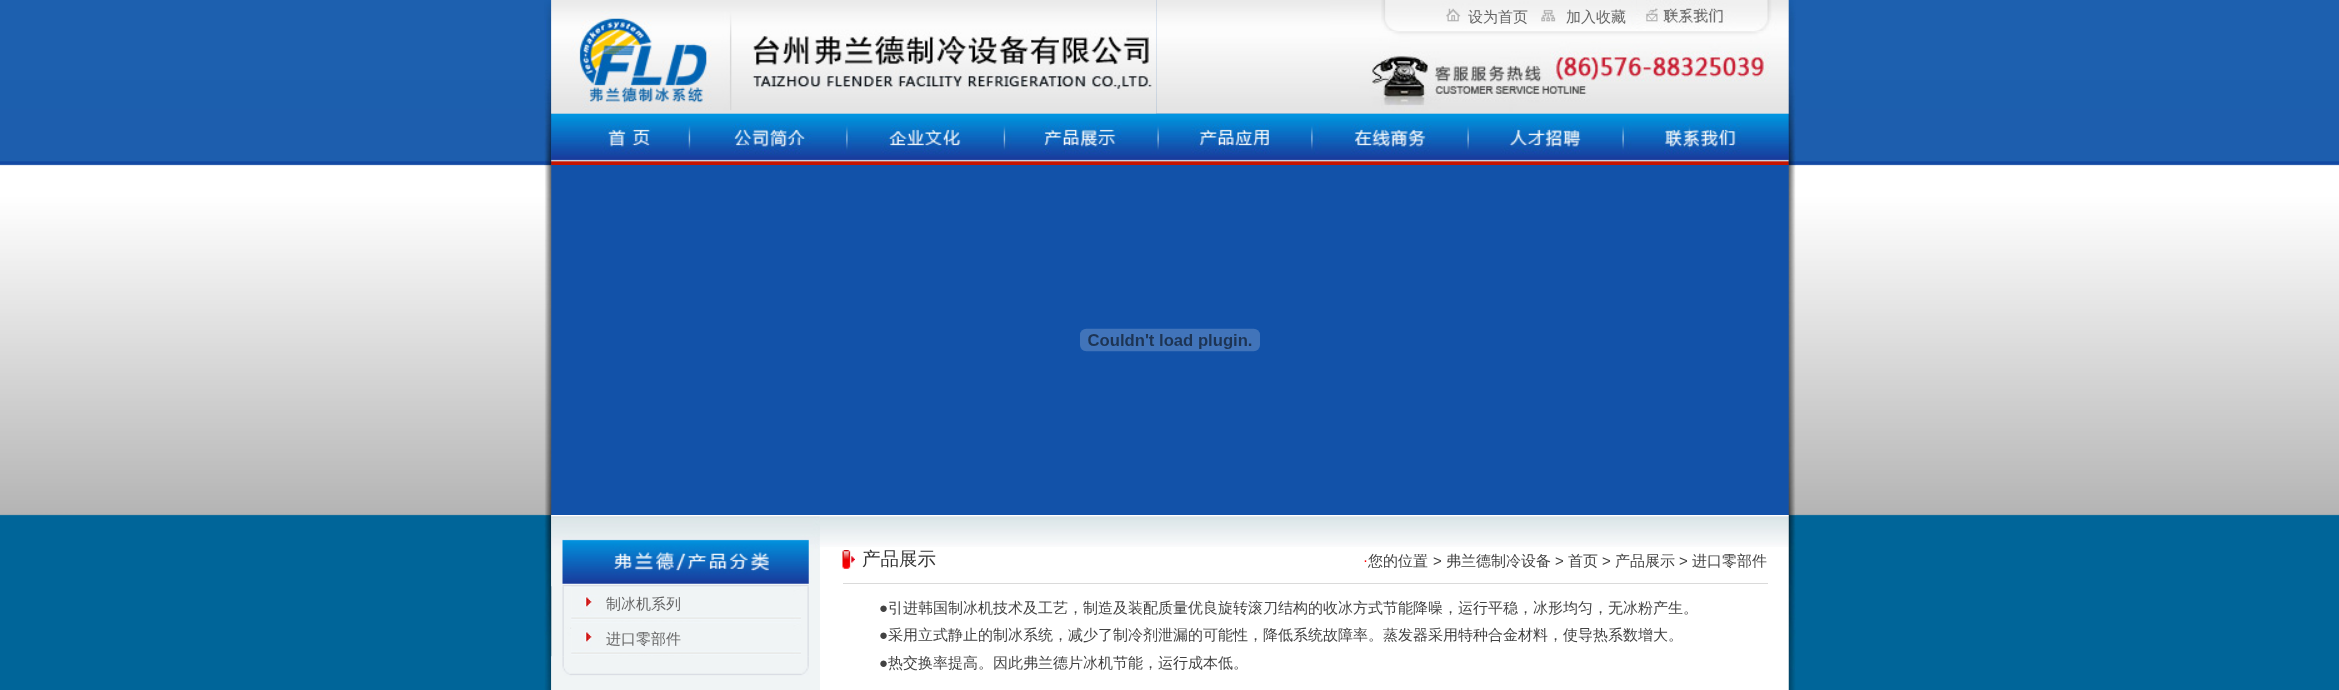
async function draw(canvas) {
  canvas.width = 2339
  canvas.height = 690
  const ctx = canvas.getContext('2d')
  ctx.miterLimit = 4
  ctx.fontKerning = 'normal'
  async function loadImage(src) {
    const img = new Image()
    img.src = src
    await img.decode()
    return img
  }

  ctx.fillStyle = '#006599'
  ctx.fillRect(0, 0, 2339, 690)
  ctx.drawImage(await loadImage('image0.png'), 0, 0, 2339, 516)
  ctx.drawImage(await loadImage('image2.png'), 551, 0, 606, 114)
  ctx.fillStyle = '#1252a9'
  ctx.fillRect(551, 165, 1238, 350)
  ctx.fillStyle = '#f0f4f5'
  ctx.fillRect(551, 515, 269, 175)
  ctx.drawImage(await loadImage('image1.png'), 544, 0, 8, 690)
  ctx.drawImage(await loadImage('image4.png'), 1156, 0, 174, 114)
  ctx.drawImage(await loadImage('image3.png'), 551, 0, 606, 114)
  ctx.drawImage(await loadImage('image5.png'), 1330, 0, 459, 114)
  ctx.drawImage(await loadImage('image6.png'), 1381, 0, 255, 32)
  ctx.font = '500 15px WenQuanYi Zen Hei'
  ctx.fillStyle = '#666'
  ctx.fillText('设为首页', 1468, 22)
  ctx.fillText('加入收藏', 1566, 22)
  ctx.drawImage(await loadImage('image7.png'), 1636, 0, 153, 32)
  ctx.drawImage(await loadImage('image8.png'), 1330, 31, 459, 83)
  ctx.drawImage(await loadImage('image9.png'), 551, 113, 1238, 52)
  ctx.drawImage(await loadImage('image10.png'), 1080, 328, 180, 24)
  ctx.drawImage(await loadImage('image12.png'), 562, 586, 247, 71)
  ctx.drawImage(await loadImage('image13.png'), 571, 586, 230, 34)
  ctx.drawImage(await loadImage('image11.png'), 551, 515, 269, 72)
  ctx.fillText('制冰机系列', 606, 609)
  ctx.drawImage(await loadImage('image14.png'), 571, 622, 230, 33)
  ctx.fillText('进口零部件', 606, 644)
  ctx.drawImage(await loadImage('image15.png'), 551, 656, 258, 34)
  ctx.fillStyle = '#fff'
  ctx.fillRect(820, 515, 969, 175)
  ctx.drawImage(await loadImage('image16.png'), 820, 516, 969, 31)
  ctx.font = '500 18.5px WenQuanYi Zen Hei'
  ctx.fillStyle = '#333'
  ctx.fillText('产品展示', 862, 565)
  ctx.fillStyle = '#dadada'
  ctx.fillRect(843, 583, 925, 1)
  ctx.drawImage(await loadImage('image17.png'), 842, 550, 13, 19)
  ctx.font = '15px Liberation Serif'
  ctx.fillStyle = '#f00'
  ctx.fillText('·', 1363, 566)
  ctx.font = '500 15px WenQuanYi Zen Hei'
  ctx.fillStyle = '#424242'
  ctx.fillText('您的位置', 1368, 566)
  ctx.font = '15px Liberation Sans'
  ctx.fillText('>', 1433, 566)
  ctx.font = '500 15px WenQuanYi Zen Hei'
  ctx.fillText('弗兰德制冷设备', 1446, 566)
  ctx.font = '15px Liberation Sans'
  ctx.fillText('>', 1555, 566)
  ctx.font = '500 15px WenQuanYi Zen Hei'
  ctx.fillText('首页', 1568, 566)
  ctx.font = '15px Liberation Sans'
  ctx.fillText('>', 1602, 566)
  ctx.font = '500 15px WenQuanYi Zen Hei'
  ctx.fillText('产品展示', 1615, 566)
  ctx.font = '15px Liberation Sans'
  ctx.fillText('>', 1679, 566)
  ctx.font = '500 15px WenQuanYi Zen Hei'
  ctx.fillText('进口零部件', 1692, 566)
  ctx.font = '15px Liberation Sans'
  ctx.fillText('●', 879, 613)
  ctx.font = '500 15px WenQuanYi Zen Hei'
  ctx.fillText('引进韩国制冰机技术及工艺，制造及装配质量优良旋转滚刀结构的收冰方式节能降噪，运行平稳，冰形均匀，无冰粉产生。', 888, 613)
  ctx.font = '15px Liberation Sans'
  ctx.fillText('●', 879, 640)
  ctx.font = '500 15px WenQuanYi Zen Hei'
  ctx.fillText('采用立式静止的制冰系统，减少了制冷剂泄漏的可能性，降低系统故障率。蒸发器采用特种合金材料，使导热系数增大。', 888, 640)
  ctx.font = '15px Liberation Sans'
  ctx.fillText('●', 879, 668)
  ctx.font = '500 15px WenQuanYi Zen Hei'
  ctx.fillText('热交换率提高。因此弗兰德片冰机节能，运行成本低。', 888, 668)
  ctx.drawImage(await loadImage('image18.png'), 1788, 0, 8, 690)
}

draw(document.querySelector('canvas'))
